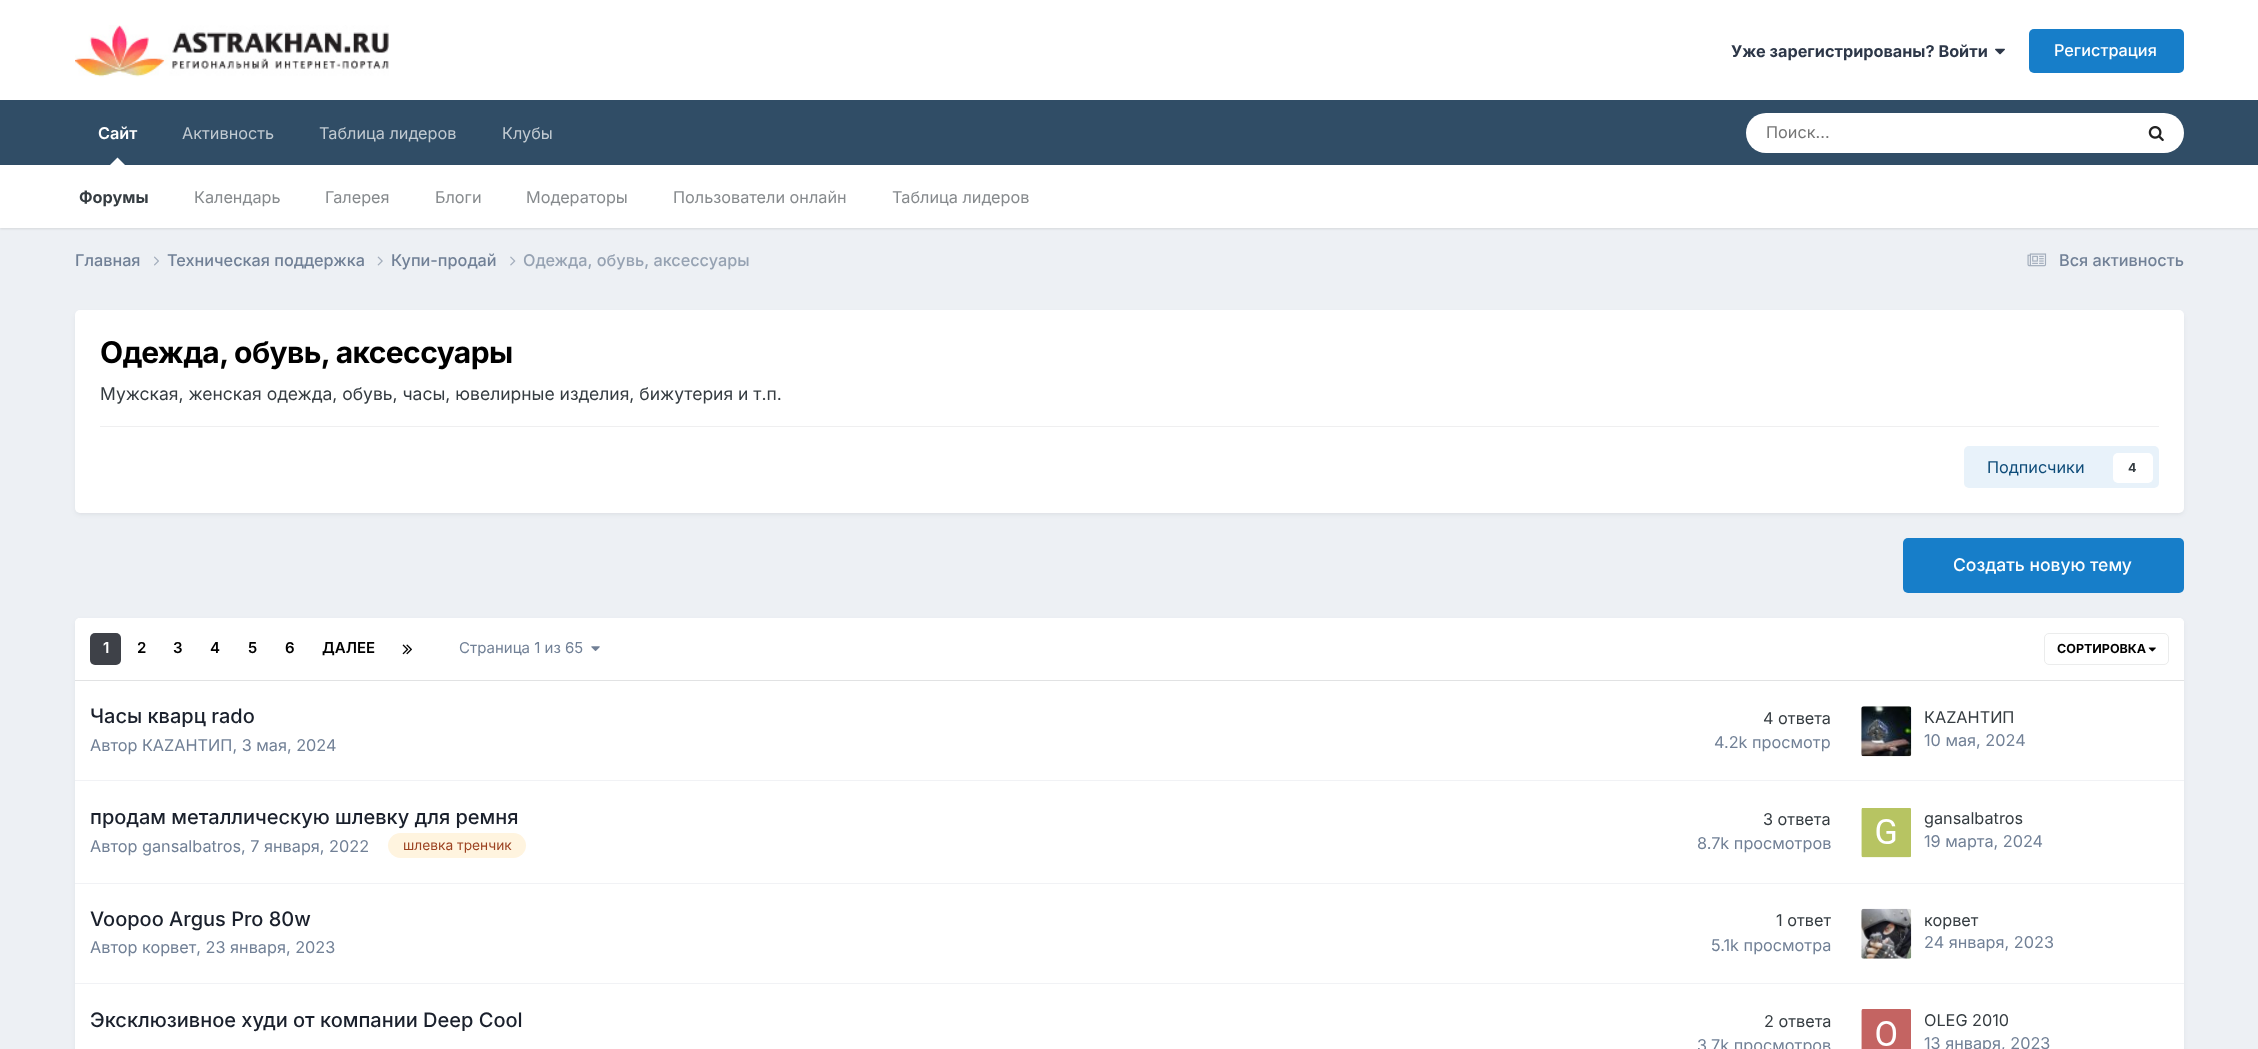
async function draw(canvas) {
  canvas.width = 2258
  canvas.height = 1049
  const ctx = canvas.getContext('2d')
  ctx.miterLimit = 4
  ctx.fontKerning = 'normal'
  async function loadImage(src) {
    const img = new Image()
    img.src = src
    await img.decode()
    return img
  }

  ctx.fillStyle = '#edf0f4'
  ctx.fillRect(0, 0, 2258, 1049)
  ctx.fillStyle = '#fff'
  ctx.fillRect(0, 0, 2258, 100)
  ctx.drawImage(await loadImage('image0.png'), 75, 25, 314, 52)
  ctx.font = 'bold 16.25px Inter'
  ctx.fillStyle = '#2d3748'
  ctx.fillText('Уже зарегистрированы? Войти', 1731, 57)
  ctx.drawImage(await loadImage('image1.png'), 1995, 48, 10, 7)
  ctx.fillStyle = '#177ec9'
  ctx.beginPath()
  ctx.roundRect(2029, 29, 155, 44, 5)
  ctx.fill()
  ctx.font = '500 16.25px Inter'
  ctx.fillStyle = '#fff'
  ctx.fillText('Регистрация', 2054, 56)
  ctx.fillStyle = '#304d66'
  ctx.fillRect(0, 100, 2258, 65)
  ctx.font = '600 16.25px Inter'
  ctx.fillStyle = '#fff'
  ctx.fillText('Сайт', 98, 139)
  ctx.fillStyle = '#0000001a'
  ctx.filter = 'blur(1px)'
  ctx.beginPath()
  ctx.rect(0, 166, 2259, 63)
  ctx.fill()
  ctx.filter = 'none'
  ctx.fillStyle = '#fff'
  ctx.beginPath()
  ctx.moveTo(125, 165)
  ctx.lineTo(110, 165)
  ctx.lineTo(117.5, 157.5)
  ctx.closePath()
  ctx.fill()
  ctx.fillRect(0, 165, 2258, 63)
  ctx.font = 'bold 16.25px Inter'
  ctx.fillStyle = '#353c41'
  ctx.fillText('Форумы', 79, 203)
  ctx.font = '16.25px Inter'
  ctx.fillStyle = '#868a8d'
  ctx.fillText('Календарь', 194, 203)
  ctx.fillText('Галерея', 325, 203)
  ctx.fillText('Блоги', 435, 203)
  ctx.fillText('Модераторы', 526, 203)
  ctx.fillText('Пользователи онлайн', 673, 203)
  ctx.fillText('Таблица лидеров', 892, 203)
  ctx.fillStyle = '#c1cad1'
  ctx.fillText('Активность', 182, 139)
  ctx.fillText('Таблица лидеров', 319, 139)
  ctx.fillText('Клубы', 502, 139)
  ctx.fillStyle = '#fff'
  ctx.beginPath()
  ctx.roundRect(1746, 113, 438, 40, 20)
  ctx.fill()
  ctx.fillStyle = '#757575'
  ctx.fillText('Поиск...', 1766, 138)
  ctx.drawImage(await loadImage('image2.png'), 2148, 126, 16, 16)
  ctx.font = '500 16.25px Inter'
  ctx.fillStyle = '#718096'
  ctx.fillText('Главная', 75, 266)
  ctx.drawImage(await loadImage('image3.png'), 154, 256, 5, 10)
  ctx.fillText('Техническая поддержка', 167, 266)
  ctx.drawImage(await loadImage('image4.png'), 377, 256, 6, 10)
  ctx.fillText('Купи-продай', 391, 266)
  ctx.drawImage(await loadImage('image5.png'), 510, 256, 6, 10)
  ctx.fillStyle = '#96a2b2'
  ctx.fillText('Одежда, обувь, аксессуары', 523, 266)
  ctx.drawImage(await loadImage('image6.png'), 2027, 253, 20, 14)
  ctx.fillStyle = '#718096'
  ctx.fillText('Вся активность', 2059, 266)
  ctx.fillStyle = '#2d37481a'
  ctx.filter = 'blur(2.5px)'
  ctx.beginPath()
  ctx.roundRect(76, 314, 2107, 200, 4)
  ctx.fill()
  ctx.filter = 'none'
  ctx.fillStyle = '#fff'
  ctx.beginPath()
  ctx.roundRect(75, 310, 2109, 203, 5)
  ctx.fill()
  ctx.letterSpacing = '-0.6px'
  ctx.wordSpacing = '-1px'
  ctx.font = 'bold 30px Inter'
  ctx.fillStyle = '#000'
  ctx.fillText('Одежда, обувь, аксессуары', 100, 363)
  ctx.letterSpacing = '0px'
  ctx.wordSpacing = '0px'
  ctx.font = '17.5px Inter'
  ctx.fillStyle = '#353c41'
  ctx.fillText('Мужская, женская одежда, обувь, часы, ювелирные изделия, бижутерия и т.п.', 100, 400)
  ctx.fillStyle = '#efeff0'
  ctx.fillRect(100, 426, 2059, 1)
  ctx.fillStyle = '#e8f2fa'
  ctx.beginPath()
  ctx.roundRect(1964, 446, 195, 42, 5)
  ctx.fill()
  ctx.font = '16.25px Inter'
  ctx.fillStyle = '#0e4c79'
  ctx.fillText('Подписчики', 1987, 473)
  ctx.fillStyle = '#fff'
  ctx.beginPath()
  ctx.roundRect(2113, 453, 40, 30, 5)
  ctx.fill()
  ctx.font = 'bold 12.5px Inter'
  ctx.fillStyle = '#353c41'
  ctx.fillText('4', 2128, 472)
  ctx.fillStyle = '#177ec9'
  ctx.beginPath()
  ctx.roundRect(1903, 538, 281, 55, 5)
  ctx.fill()
  ctx.font = '500 17.5px Inter'
  ctx.fillStyle = '#fff'
  ctx.fillText('Создать новую тему', 1953, 571)
  ctx.fillStyle = '#2d37481a'
  ctx.filter = 'blur(2.5px)'
  ctx.beginPath()
  ctx.roundRect(76, 621, 2107, 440, 4)
  ctx.fill()
  ctx.filter = 'none'
  ctx.fillStyle = '#fff'
  ctx.beginPath()
  ctx.roundRect(75, 618, 2109, 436, 5)
  ctx.fill()
  ctx.beginPath()
  ctx.roundRect(75, 618, 2109, 63, [5, 5, 0, 0])
  ctx.fill()
  ctx.fillStyle = '#e1e2e3'
  ctx.fillRect(75, 680, 2109, 1)
  ctx.fillStyle = '#3e4148'
  ctx.beginPath()
  ctx.roundRect(90, 633, 31, 32, 5)
  ctx.fill()
  ctx.font = '600 15px Inter'
  ctx.fillStyle = '#fff'
  ctx.fillText('1', 103, 653)
  ctx.fillStyle = '#000'
  ctx.fillText('2', 137, 653)
  ctx.fillText('3', 173, 653)
  ctx.fillText('4', 210, 653)
  ctx.fillText('5', 248, 653)
  ctx.fillText('6', 285, 653)
  ctx.fillText('ДАЛЕЕ', 322, 653)
  ctx.drawImage(await loadImage('image7.png'), 402, 644, 10, 11)
  ctx.font = '15px Inter'
  ctx.fillStyle = '#718096'
  ctx.fillText('Страница 1 из 65', 459, 653)
  ctx.drawImage(await loadImage('image8.png'), 591, 646, 9, 5)
  ctx.drawImage(await loadImage('image9.png'), 2148, 647, 8, 5)
  ctx.beginPath()
  ctx.roundRect(2044.5, 633.5, 124, 31, 4.5)
  ctx.strokeStyle = '#ebecec'
  ctx.stroke()
  ctx.font = 'bold 12.5px Inter'
  ctx.fillStyle = '#000'
  ctx.fillText('СОРТИРОВКА', 2057, 653)
  ctx.fillStyle = '#f1f2f5'
  ctx.fillRect(75, 780, 2109, 1)
  ctx.font = '500 20px Inter'
  ctx.fillStyle = '#1a202c'
  ctx.fillText('Часы кварц rado', 90, 723)
  ctx.font = '16.25px Inter'
  ctx.fillStyle = '#718096'
  ctx.fillText('Автор КАZАНТИП, 3 мая, 2024', 90, 751)
  ctx.fillStyle = '#353c41'
  ctx.fillText('4 ответа', 1763, 724)
  ctx.fillStyle = '#718096'
  ctx.fillText('4.2k просмотр', 1714, 748)
  ctx.drawImage(await loadImage('image10.png'), 1861, 706, 51, 51)
  ctx.fillStyle = '#353c41'
  ctx.fillText('КАZАНТИП', 1924, 723)
  ctx.fillStyle = '#718096'
  ctx.fillText('10 мая, 2024', 1924, 746)
  ctx.fillStyle = '#f1f2f5'
  ctx.fillRect(75, 883, 2109, 1)
  ctx.font = '500 20px Inter'
  ctx.fillStyle = '#1a202c'
  ctx.fillText('продам металлическую шлевку для ремня', 90, 824)
  ctx.font = '16.25px Inter'
  ctx.fillStyle = '#718096'
  ctx.fillText('Автор gansalbatros, 7 января, 2022', 90, 852)
  ctx.fillStyle = '#fff4df'
  ctx.beginPath()
  ctx.roundRect(388, 833, 138, 25, 12.5)
  ctx.fill()
  ctx.font = '13.75px Inter'
  ctx.fillStyle = '#9c4221'
  ctx.fillText('шлевка тренчик', 403, 850)
  ctx.font = '16.25px Inter'
  ctx.fillStyle = '#353c41'
  ctx.fillText('3 ответа', 1763, 825)
  ctx.fillStyle = '#718096'
  ctx.fillText('8.7k просмотров', 1697, 849)
  ctx.drawImage(await loadImage('image11.png'), 1861, 808, 50, 50)
  ctx.fillStyle = '#353c41'
  ctx.fillText('gansalbatros', 1924, 824)
  ctx.fillStyle = '#718096'
  ctx.fillText('19 марта, 2024', 1924, 847)
  ctx.fillStyle = '#f1f2f5'
  ctx.fillRect(75, 983, 2109, 1)
  ctx.font = '500 20px Inter'
  ctx.fillStyle = '#1a202c'
  ctx.fillText('Voopoo Argus Pro 80w', 90, 926)
  ctx.font = '16.25px Inter'
  ctx.fillStyle = '#718096'
  ctx.fillText('Автор корвет, 23 января, 2023', 90, 953)
  ctx.fillStyle = '#353c41'
  ctx.fillText('1 ответ', 1776, 926)
  ctx.fillStyle = '#718096'
  ctx.fillText('5.1k просмотра', 1711, 951)
  ctx.drawImage(await loadImage('image12.png'), 1861, 908, 51, 51)
  ctx.fillStyle = '#353c41'
  ctx.fillText('корвет', 1924, 926)
  ctx.fillStyle = '#718096'
  ctx.fillText('24 января, 2023', 1924, 948)
  ctx.font = '500 20px Inter'
  ctx.fillStyle = '#1a202c'
  ctx.fillText('Эксклюзивное худи от компании Deep Cool', 90, 1027)
  ctx.font = '16.25px Inter'
  ctx.fillStyle = '#353c41'
  ctx.fillText('2 ответа', 1764, 1027)
  ctx.fillStyle = '#718096'
  ctx.fillText('3.7k просмотров', 1697, 1051)
  ctx.drawImage(await loadImage('image13.png'), 1861, 1009, 50, 40)
  ctx.fillStyle = '#353c41'
  ctx.fillText('OLEG 2010', 1924, 1026)
  ctx.fillStyle = '#718096'
  ctx.fillText('13 января, 2023', 1924, 1049)
}

draw(document.querySelector('canvas'))
